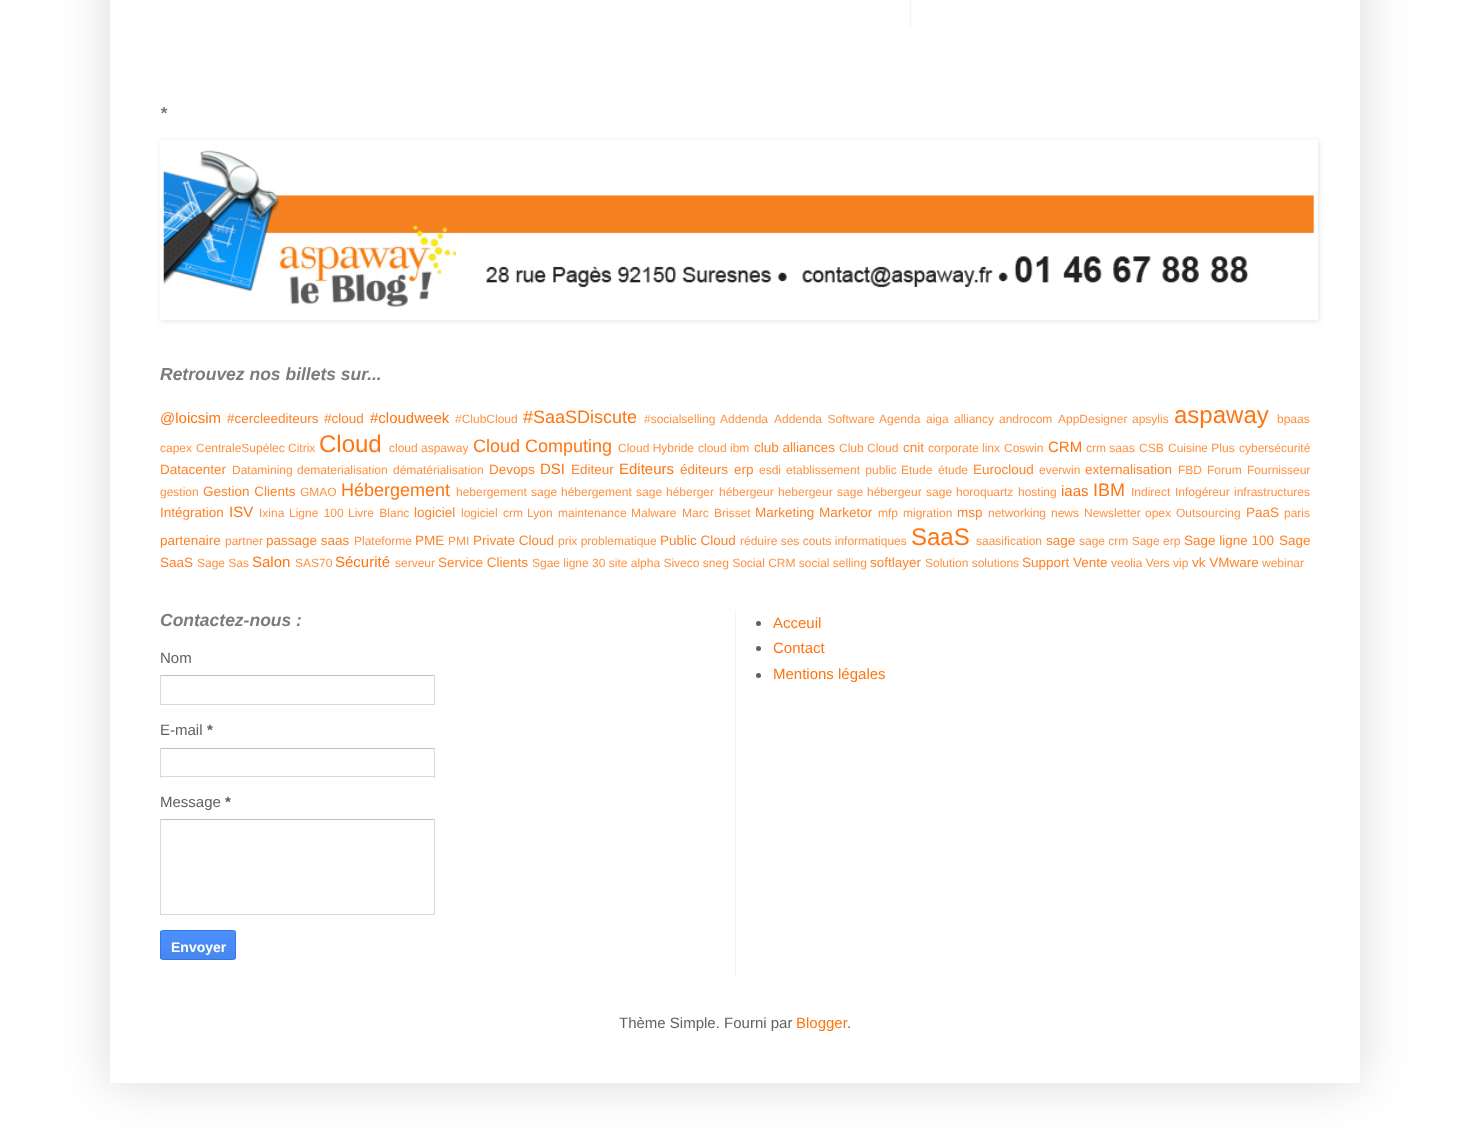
async function draw(canvas) {
  canvas.width = 1470
  canvas.height = 1133
  const ctx = canvas.getContext('2d')
  ctx.miterLimit = 4
  ctx.fontKerning = 'normal'
  async function loadImage(src) {
    const img = new Image()
    img.src = src
    await img.decode()
    return img
  }
  let gradient

  ctx.fillStyle = '#fff'
  ctx.fillRect(0, 0, 1470, 1133)
  ctx.fillStyle = '#00000026'
  ctx.filter = 'blur(25px)'
  ctx.beginPath()
  ctx.rect(110, -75, 1250, 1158)
  ctx.fill()
  ctx.filter = 'none'
  ctx.fillStyle = '#fff'
  ctx.fillRect(110, 0, 1250, 1083)
  ctx.fillStyle = '#f3f3f3'
  ctx.fillRect(910, 0, 1, 28)
  ctx.font = 'italic bold 17.5px Liberation Sans'
  ctx.fillStyle = '#7c7c7c'
  ctx.fillText('*', 160, 119)
  ctx.fillStyle = '#0000001a'
  ctx.filter = 'blur(3px)'
  ctx.beginPath()
  ctx.rect(161, 141, 1158, 180)
  ctx.fill()
  ctx.filter = 'none'
  ctx.fillStyle = '#fff'
  ctx.fillRect(160, 140, 1158, 180)
  ctx.drawImage(await loadImage('image0.png'), 163, 150, 1151, 157)
  ctx.fillStyle = '#7c7c7c'
  ctx.fillText('Retrouvez nos billets sur...', 160, 380)
  ctx.font = '15px Liberation Sans'
  ctx.fillStyle = '#ff7511'
  ctx.fillText('@loicsim', 160, 423)
  ctx.font = '13.5px Liberation Sans'
  ctx.fillStyle = '#ff8329'
  ctx.fillText('#cercleediteurs', 227, 423)
  ctx.fillText('#cloud', 324, 423)
  ctx.font = '15px Liberation Sans'
  ctx.fillStyle = '#ff7511'
  ctx.fillText('#cloudweek', 370, 423)
  ctx.font = '12px Liberation Sans'
  ctx.fillStyle = '#ff9141'
  ctx.fillText('#ClubCloud', 455, 423)
  ctx.font = '18px Liberation Sans'
  ctx.fillStyle = '#ff7511'
  ctx.fillText('#SaaSDiscute', 523, 423)
  ctx.font = '12px Liberation Sans'
  ctx.fillStyle = '#ff9141'
  ctx.fillText('#socialselling', 644, 423)
  ctx.fillText('Addenda', 720, 423)
  ctx.wordSpacing = '2px'
  ctx.fillText('Addenda Software', 774, 423)
  ctx.wordSpacing = '0px'
  ctx.fillText('Agenda', 879, 423)
  ctx.fillText('aiga', 926, 423)
  ctx.fillText('alliancy', 954, 423)
  ctx.fillText('androcom', 999, 423)
  ctx.fillText('AppDesigner', 1058, 423)
  ctx.fillText('apsylis', 1132, 423)
  ctx.font = '24px Liberation Sans'
  ctx.fillStyle = '#ff7511'
  ctx.fillText('aspaway', 1174, 423)
  ctx.font = '12px Liberation Sans'
  ctx.fillStyle = '#ff9141'
  ctx.fillText('bpaas', 1277, 423)
  ctx.fillText('capex', 160, 452)
  ctx.fillText('CentraleSupélec', 196, 452)
  ctx.fillText('Citrix', 288, 452)
  ctx.font = '24px Liberation Sans'
  ctx.fillStyle = '#ff7511'
  ctx.fillText('Cloud', 319, 452)
  ctx.font = '12px Liberation Sans'
  ctx.fillStyle = '#ff9141'
  ctx.fillText('cloud aspaway', 389, 452)
  ctx.font = '18px Liberation Sans'
  ctx.fillStyle = '#ff7511'
  ctx.fillText('Cloud Computing', 473, 452)
  ctx.font = '12px Liberation Sans'
  ctx.fillStyle = '#ff9141'
  ctx.fillText('Cloud Hybride', 618, 452)
  ctx.fillText('cloud ibm', 698, 452)
  ctx.font = '13.5px Liberation Sans'
  ctx.fillStyle = '#ff8329'
  ctx.fillText('club alliances', 754, 452)
  ctx.font = '12px Liberation Sans'
  ctx.fillStyle = '#ff9141'
  ctx.fillText('Club Cloud', 839, 452)
  ctx.font = '13.5px Liberation Sans'
  ctx.fillStyle = '#ff8329'
  ctx.fillText('cnit', 903, 452)
  ctx.font = '12px Liberation Sans'
  ctx.fillStyle = '#ff9141'
  ctx.fillText('corporate linx', 928, 452)
  ctx.fillText('Coswin', 1004, 452)
  ctx.font = '15px Liberation Sans'
  ctx.fillStyle = '#ff7511'
  ctx.fillText('CRM', 1048, 452)
  ctx.font = '12px Liberation Sans'
  ctx.fillStyle = '#ff9141'
  ctx.fillText('crm saas', 1086, 452)
  ctx.fillText('CSB', 1139, 452)
  ctx.fillText('Cuisine Plus', 1168, 452)
  ctx.fillText('cybersécurité', 1239, 452)
  ctx.font = '13.5px Liberation Sans'
  ctx.fillStyle = '#ff8329'
  ctx.fillText('Datacenter', 160, 474)
  ctx.font = '12px Liberation Sans'
  ctx.fillStyle = '#ff9141'
  ctx.fillText('Datamining', 232, 474)
  ctx.fillText('dematerialisation', 297, 474)
  ctx.fillText('dématérialisation', 393, 474)
  ctx.font = '13.5px Liberation Sans'
  ctx.fillStyle = '#ff8329'
  ctx.fillText('Devops', 489, 474)
  ctx.font = '15px Liberation Sans'
  ctx.fillStyle = '#ff7511'
  ctx.fillText('DSI', 540, 474)
  ctx.font = '13.5px Liberation Sans'
  ctx.fillStyle = '#ff8329'
  ctx.fillText('Editeur', 571, 474)
  ctx.font = '15px Liberation Sans'
  ctx.fillStyle = '#ff7511'
  ctx.fillText('Editeurs', 619, 474)
  ctx.font = '13.5px Liberation Sans'
  ctx.fillStyle = '#ff8329'
  ctx.fillText('éditeurs', 680, 474)
  ctx.fillText('erp', 734, 474)
  ctx.font = '12px Liberation Sans'
  ctx.fillStyle = '#ff9141'
  ctx.fillText('esdi', 759, 474)
  ctx.wordSpacing = '2px'
  ctx.fillText('etablissement public', 786, 474)
  ctx.wordSpacing = '0px'
  ctx.fillText('Etude', 901, 474)
  ctx.fillText('étude', 938, 474)
  ctx.font = '13.5px Liberation Sans'
  ctx.fillStyle = '#ff8329'
  ctx.fillText('Eurocloud', 973, 474)
  ctx.font = '12px Liberation Sans'
  ctx.fillStyle = '#ff9141'
  ctx.fillText('everwin', 1039, 474)
  ctx.font = '13.5px Liberation Sans'
  ctx.fillStyle = '#ff8329'
  ctx.fillText('externalisation', 1085, 474)
  ctx.font = '12px Liberation Sans'
  ctx.fillStyle = '#ff9141'
  ctx.fillText('FBD', 1178, 474)
  ctx.fillText('Forum', 1207, 474)
  ctx.fillText('Fournisseur', 1247, 474)
  ctx.fillText('gestion', 160, 496)
  ctx.wordSpacing = '1px'
  ctx.font = '13.5px Liberation Sans'
  ctx.fillStyle = '#ff8329'
  ctx.fillText('Gestion Clients', 203, 496)
  ctx.wordSpacing = '0px'
  ctx.font = '12px Liberation Sans'
  ctx.fillStyle = '#ff9141'
  ctx.fillText('GMAO', 300, 496)
  ctx.font = '18px Liberation Sans'
  ctx.fillStyle = '#ff7511'
  ctx.fillText('Hébergement', 341, 496)
  ctx.wordSpacing = '1px'
  ctx.font = '12px Liberation Sans'
  ctx.fillStyle = '#ff9141'
  ctx.fillText('hebergement sage', 456, 496)
  ctx.fillText('hébergement sage', 561, 496)
  ctx.wordSpacing = '0px'
  ctx.fillText('héberger', 666, 496)
  ctx.fillText('hébergeur', 719, 496)
  ctx.wordSpacing = '1px'
  ctx.fillText('hebergeur sage', 778, 496)
  ctx.fillText('hébergeur sage', 867, 496)
  ctx.wordSpacing = '0px'
  ctx.fillText('horoquartz', 956, 496)
  ctx.fillText('hosting', 1018, 496)
  ctx.font = '15px Liberation Sans'
  ctx.fillStyle = '#ff7511'
  ctx.fillText('iaas', 1061, 496)
  ctx.font = '18px Liberation Sans'
  ctx.fillText('IBM', 1093, 496)
  ctx.font = '12px Liberation Sans'
  ctx.fillStyle = '#ff9141'
  ctx.fillText('Indirect', 1131, 496)
  ctx.fillText('Infogéreur', 1175, 496)
  ctx.fillText('infrastructures', 1234, 496)
  ctx.font = '13.5px Liberation Sans'
  ctx.fillStyle = '#ff8329'
  ctx.fillText('Intégration', 160, 517)
  ctx.font = '15px Liberation Sans'
  ctx.fillStyle = '#ff7511'
  ctx.fillText('ISV', 229, 517)
  ctx.font = '12px Liberation Sans'
  ctx.fillStyle = '#ff9141'
  ctx.fillText('Ixina', 259, 517)
  ctx.wordSpacing = '2px'
  ctx.fillText('Ligne 100', 289, 517)
  ctx.fillText('Livre Blanc', 348, 517)
  ctx.wordSpacing = '0px'
  ctx.font = '13.5px Liberation Sans'
  ctx.fillStyle = '#ff8329'
  ctx.fillText('logiciel', 414, 517)
  ctx.wordSpacing = '2px'
  ctx.font = '12px Liberation Sans'
  ctx.fillStyle = '#ff9141'
  ctx.fillText('logiciel crm', 461, 517)
  ctx.wordSpacing = '0px'
  ctx.fillText('Lyon', 527, 517)
  ctx.fillText('maintenance', 558, 517)
  ctx.fillText('Malware', 631, 517)
  ctx.wordSpacing = '2px'
  ctx.fillText('Marc Brisset', 682, 517)
  ctx.wordSpacing = '0px'
  ctx.font = '13.5px Liberation Sans'
  ctx.fillStyle = '#ff8329'
  ctx.fillText('Marketing', 755, 517)
  ctx.fillText('Marketor', 819, 517)
  ctx.font = '12px Liberation Sans'
  ctx.fillStyle = '#ff9141'
  ctx.fillText('mfp', 878, 517)
  ctx.fillText('migration', 903, 517)
  ctx.font = '13.5px Liberation Sans'
  ctx.fillStyle = '#ff8329'
  ctx.fillText('msp', 957, 517)
  ctx.font = '12px Liberation Sans'
  ctx.fillStyle = '#ff9141'
  ctx.fillText('networking', 988, 517)
  ctx.fillText('news', 1051, 517)
  ctx.fillText('Newsletter', 1084, 517)
  ctx.fillText('opex', 1145, 517)
  ctx.fillText('Outsourcing', 1176, 517)
  ctx.font = '13.5px Liberation Sans'
  ctx.fillStyle = '#ff8329'
  ctx.fillText('PaaS', 1246, 517)
  ctx.font = '12px Liberation Sans'
  ctx.fillStyle = '#ff9141'
  ctx.fillText('paris', 1284, 517)
  ctx.font = '13.5px Liberation Sans'
  ctx.fillStyle = '#ff8329'
  ctx.fillText('partenaire', 160, 545)
  ctx.font = '12px Liberation Sans'
  ctx.fillStyle = '#ff9141'
  ctx.fillText('partner', 225, 545)
  ctx.font = '13.5px Liberation Sans'
  ctx.fillStyle = '#ff8329'
  ctx.fillText('passage saas', 266, 545)
  ctx.font = '12px Liberation Sans'
  ctx.fillStyle = '#ff9141'
  ctx.fillText('Plateforme', 354, 545)
  ctx.font = '13.5px Liberation Sans'
  ctx.fillStyle = '#ff8329'
  ctx.fillText('PME', 415, 545)
  ctx.font = '12px Liberation Sans'
  ctx.fillStyle = '#ff9141'
  ctx.fillText('PMI', 448, 545)
  ctx.font = '13.5px Liberation Sans'
  ctx.fillStyle = '#ff8329'
  ctx.fillText('Private Cloud', 473, 545)
  ctx.font = '12px Liberation Sans'
  ctx.fillStyle = '#ff9141'
  ctx.fillText('prix problematique', 558, 545)
  ctx.font = '13.5px Liberation Sans'
  ctx.fillStyle = '#ff8329'
  ctx.fillText('Public Cloud', 660, 545)
  ctx.font = '12px Liberation Sans'
  ctx.fillStyle = '#ff9141'
  ctx.fillText('réduire ses couts informatiques', 740, 545)
  ctx.font = '24px Liberation Sans'
  ctx.fillStyle = '#ff7511'
  ctx.fillText('SaaS', 911, 545)
  ctx.font = '12px Liberation Sans'
  ctx.fillStyle = '#ff9141'
  ctx.fillText('saasification', 976, 545)
  ctx.font = '13.5px Liberation Sans'
  ctx.fillStyle = '#ff8329'
  ctx.fillText('sage', 1046, 545)
  ctx.font = '12px Liberation Sans'
  ctx.fillStyle = '#ff9141'
  ctx.fillText('sage crm Sage erp', 1079, 545)
  ctx.font = '13.5px Liberation Sans'
  ctx.fillStyle = '#ff8329'
  ctx.fillText('Sage ligne 100', 1184, 545)
  ctx.fillText('Sage', 1279, 545)
  ctx.fillText('SaaS', 160, 567)
  ctx.font = '12px Liberation Sans'
  ctx.fillStyle = '#ff9141'
  ctx.fillText('Sage Sas', 197, 567)
  ctx.font = '15px Liberation Sans'
  ctx.fillStyle = '#ff7511'
  ctx.fillText('Salon', 252, 567)
  ctx.font = '12px Liberation Sans'
  ctx.fillStyle = '#ff9141'
  ctx.fillText('SAS70', 295, 567)
  ctx.font = '15px Liberation Sans'
  ctx.fillStyle = '#ff7511'
  ctx.fillText('Sécurité', 335, 567)
  ctx.font = '12px Liberation Sans'
  ctx.fillStyle = '#ff9141'
  ctx.fillText('serveur', 395, 567)
  ctx.font = '13.5px Liberation Sans'
  ctx.fillStyle = '#ff8329'
  ctx.fillText('Service Clients', 438, 567)
  ctx.font = '12px Liberation Sans'
  ctx.fillStyle = '#ff9141'
  ctx.fillText('Sgae ligne 30 site alpha Siveco sneg Social CRM social selling', 532, 567)
  ctx.font = '13.5px Liberation Sans'
  ctx.fillStyle = '#ff8329'
  ctx.fillText('softlayer', 870, 567)
  ctx.font = '12px Liberation Sans'
  ctx.fillStyle = '#ff9141'
  ctx.fillText('Solution solutions', 925, 567)
  ctx.font = '13.5px Liberation Sans'
  ctx.fillStyle = '#ff8329'
  ctx.fillText('Support Vente', 1022, 567)
  ctx.font = '12px Liberation Sans'
  ctx.fillStyle = '#ff9141'
  ctx.fillText('veolia Vers vip', 1111, 567)
  ctx.font = '13.5px Liberation Sans'
  ctx.fillStyle = '#ff8329'
  ctx.fillText('vk VMware', 1192, 567)
  ctx.font = '12px Liberation Sans'
  ctx.fillStyle = '#ff9141'
  ctx.fillText('webinar', 1262, 567)
  ctx.font = 'italic bold 17.5px Liberation Sans'
  ctx.fillStyle = '#7c7c7c'
  ctx.fillText('Contactez-nous :', 160, 626)
  ctx.font = '15px Liberation Sans'
  ctx.fillStyle = '#616161'
  ctx.fillText('Nom', 160, 663)
  ctx.fillStyle = '#c0c0c0'
  ctx.fillRect(160, 675, 275, 1)
  ctx.fillStyle = '#d9d9d9'
  ctx.fillRect(434, 675, 1, 30)
  ctx.fillRect(160, 704, 275, 1)
  ctx.fillRect(160, 675, 1, 30)
  ctx.fillStyle = '#616161'
  ctx.fillText('E-mail', 160, 735)
  ctx.font = 'bold 15px Liberation Sans'
  ctx.fillText('*', 207, 735)
  ctx.fillStyle = '#c0c0c0'
  ctx.fillRect(160, 748, 275, 1)
  ctx.fillStyle = '#d9d9d9'
  ctx.fillRect(434, 748, 1, 30)
  ctx.fillRect(160, 776, 275, 1)
  ctx.fillRect(160, 748, 1, 30)
  ctx.font = '15px Liberation Sans'
  ctx.fillStyle = '#616161'
  ctx.fillText('Message', 160, 807)
  ctx.font = 'bold 15px Liberation Sans'
  ctx.fillText('*', 225, 807)
  ctx.fillStyle = '#c0c0c0'
  ctx.fillRect(160, 819, 275, 1)
  ctx.fillStyle = '#d9d9d9'
  ctx.fillRect(434, 819, 1, 96)
  ctx.fillRect(160, 914, 275, 1)
  ctx.fillRect(160, 819, 1, 96)
  ctx.save()
  ctx.beginPath()
  ctx.roundRect(160, 930, 76, 30, 2.5)
  ctx.clip()
  gradient = ctx.createLinearGradient(198, 931, 198, 959)
  gradient.addColorStop(0, '#4d90fe')
  gradient.addColorStop(1, '#4787ed')
  ctx.fillStyle = gradient
  ctx.fillRect(160, 931, 76, 28)
  ctx.restore()
  ctx.beginPath()
  ctx.roundRect(160.5, 930.5, 75, 29, 2)
  ctx.strokeStyle = '#3079ed'
  ctx.stroke()
  ctx.font = 'bold 14px Liberation Sans'
  ctx.fillStyle = '#fff'
  ctx.fillText('Envoyer', 171, 952)
  ctx.fillStyle = '#f3f3f3'
  ctx.fillRect(735, 610, 1, 365)
  ctx.fillStyle = '#616161'
  ctx.beginPath()
  ctx.arc(758.5, 623.5, 2.5, 0, 2 * Math.PI)
  ctx.fill()
  ctx.font = '15px Liberation Sans'
  ctx.fillStyle = '#ff7511'
  ctx.fillText('Acceuil', 773, 628)
  ctx.fillStyle = '#616161'
  ctx.beginPath()
  ctx.arc(758.5, 648.5, 2.5, 0, 2 * Math.PI)
  ctx.fill()
  ctx.fillStyle = '#ff7511'
  ctx.fillText('Contact', 773, 653)
  ctx.fillStyle = '#616161'
  ctx.beginPath()
  ctx.arc(758.5, 675.5, 2.5, 0, 2 * Math.PI)
  ctx.fill()
  ctx.fillStyle = '#ff7511'
  ctx.fillText('Mentions légales', 773, 679)
  ctx.fillStyle = '#616161'
  ctx.fillText('Thème Simple. Fourni par', 619, 1028)
  ctx.fillStyle = '#ff7511'
  ctx.fillText('Blogger', 796, 1028)
  ctx.fillStyle = '#616161'
  ctx.fillText('.', 847, 1028)
}

draw(document.querySelector('canvas'))
